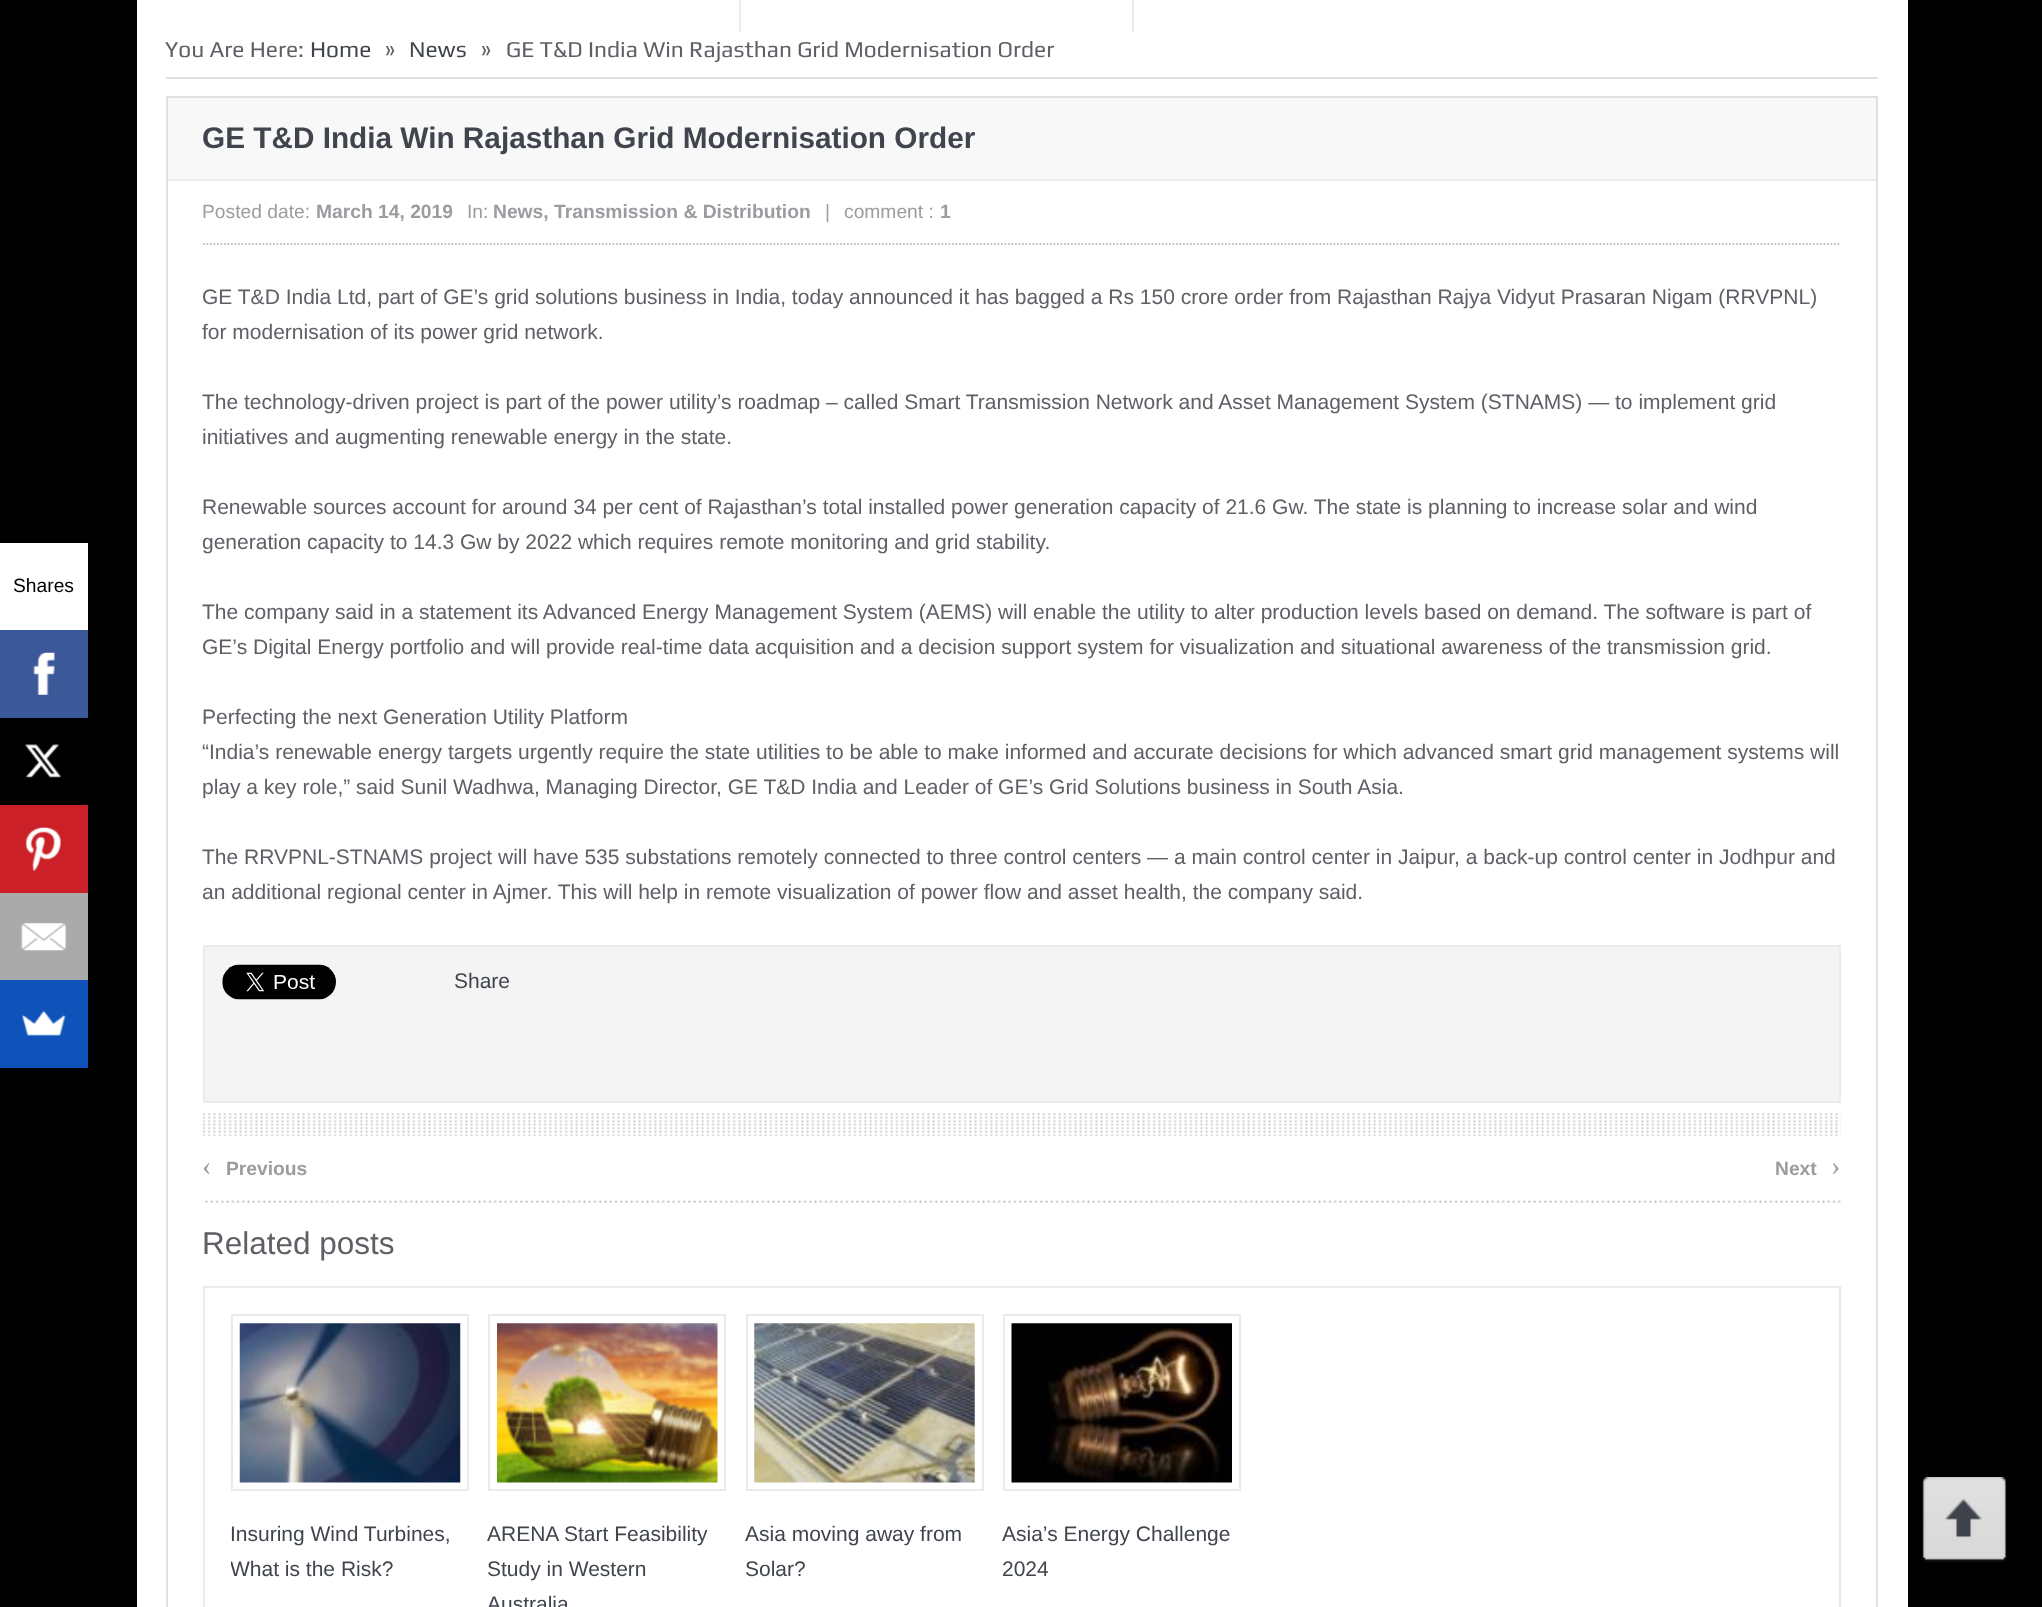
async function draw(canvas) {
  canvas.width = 2042
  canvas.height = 1607
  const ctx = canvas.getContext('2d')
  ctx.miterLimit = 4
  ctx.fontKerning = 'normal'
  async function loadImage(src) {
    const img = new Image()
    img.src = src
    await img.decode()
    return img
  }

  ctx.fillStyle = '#000'
  ctx.fillRect(0, 0, 2042, 1607)
  ctx.fillStyle = '#fff'
  ctx.fillRect(0, 543, 88, 87)
  ctx.font = '19.25px Liberation Sans'
  ctx.fillStyle = '#000'
  ctx.fillText('Shares', 13, 592)
  ctx.fillStyle = '#3b5998'
  ctx.fillRect(0, 630, 88, 88)
  ctx.drawImage(await loadImage('image0.png'), 33, 652, 22, 43)
  ctx.drawImage(await loadImage('image1.png'), 25, 744, 36, 34)
  ctx.fillStyle = '#cb2027'
  ctx.fillRect(0, 805, 88, 88)
  ctx.drawImage(await loadImage('image2.png'), 25, 827, 36, 44)
  ctx.fillStyle = '#aaa'
  ctx.fillRect(0, 893, 88, 87)
  ctx.drawImage(await loadImage('image3.png'), 21, 923, 46, 28)
  ctx.fillStyle = '#0f52ba'
  ctx.fillRect(0, 980, 88, 88)
  ctx.drawImage(await loadImage('image4.png'), 22, 1010, 44, 26)
  ctx.fillStyle = '#fff'
  ctx.fillRect(137, 0, 1771, 1607)
  ctx.fillStyle = '#eaeaea'
  ctx.fillRect(739, 0, 2, 32)
  ctx.fillRect(1132, 0, 2, 32)
  ctx.fillStyle = '#e0e0e0'
  ctx.fillRect(166, 77, 1712, 2)
  ctx.font = '22.75px Play'
  ctx.fillStyle = '#5e6066'
  ctx.fillText('You Are Here:', 165, 57)
  ctx.fillStyle = '#40454d'
  ctx.fillText('Home', 310, 57)
  ctx.font = '24px Play'
  ctx.fillStyle = '#5e6066'
  ctx.fillText('»', 385, 57)
  ctx.font = '22.75px Play'
  ctx.fillStyle = '#40454d'
  ctx.fillText('News', 409, 57)
  ctx.font = '24px Play'
  ctx.fillStyle = '#5e6066'
  ctx.fillText('»', 481, 57)
  ctx.font = '22.75px Play'
  ctx.fillText('GE T&D India Win Rajasthan Grid Modernisation Order', 506, 57)
  ctx.strokeStyle = '#e0e0e0'
  ctx.lineWidth = 2
  ctx.strokeRect(167, 97, 1710, 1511)
  ctx.fillStyle = '#f8f8f8'
  ctx.fillRect(168, 98, 1708, 81)
  ctx.fillStyle = '#ebebeb'
  ctx.fillRect(168, 179, 1708, 2)
  ctx.font = 'bold 29.75px Liberation Sans'
  ctx.fillStyle = '#40454d'
  ctx.fillText('GE T&D India Win Rajasthan Grid Modernisation Order', 202, 148)
  ctx.beginPath()
  ctx.moveTo(203, 244)
  ctx.lineTo(1841, 244)
  ctx.strokeStyle = '#c3c3c3'
  ctx.lineWidth = 1.8
  ctx.setLineDash([1.75, 1.75])
  ctx.stroke()
  ctx.font = '19.25px Liberation Sans'
  ctx.fillStyle = '#9b9ca0'
  ctx.fillText('Posted date:', 202, 218)
  ctx.font = 'bold 19.25px Liberation Sans'
  ctx.fillText('March 14, 2019', 316, 218)
  ctx.font = '19.25px Liberation Sans'
  ctx.fillText('In:', 467, 218)
  ctx.font = 'bold 19.25px Liberation Sans'
  ctx.fillText('News, Transmission & Distribution', 493, 218)
  ctx.font = '19.25px Liberation Sans'
  ctx.fillText('|', 825, 218)
  ctx.fillText('comment :', 844, 218)
  ctx.font = 'bold 19.25px Liberation Sans'
  ctx.fillText('1', 940, 218)
  ctx.font = '21px Liberation Sans'
  ctx.fillStyle = '#5e6066'
  ctx.fillText('GE T&D India Ltd, part of GE’s grid solutions business in India, today announced it has bagged a Rs 150 crore order from Rajasthan Rajya Vidyut Prasaran Nigam (RRVPNL)', 202, 304)
  ctx.fillText('for modernisation of its power grid network.', 202, 339)
  ctx.fillText('The technology-driven project is part of the power utility’s roadmap – called Smart Transmission Network and Asset Management System (STNAMS) — to implement grid', 202, 409)
  ctx.fillText('initiatives and augmenting renewable energy in the state.', 202, 444)
  ctx.fillText('Renewable sources account for around 34 per cent of Rajasthan’s total installed power generation capacity of 21.6 Gw. The state is planning to increase solar and wind', 202, 514)
  ctx.fillText('generation capacity to 14.3 Gw by 2022 which requires remote monitoring and grid stability.', 202, 549)
  ctx.fillText('The company said in a statement its Advanced Energy Management System (AEMS) will enable the utility to alter production levels based on demand. The software is part of', 202, 619)
  ctx.fillText('GE’s Digital Energy portfolio and will provide real-time data acquisition and a decision support system for visualization and situational awareness of the transmission grid.', 202, 654)
  ctx.fillText('Perfecting the next Generation Utility Platform', 202, 724)
  ctx.fillText('“India’s renewable energy targets urgently require the state utilities to be able to make informed and accurate decisions for which advanced smart grid management systems will', 202, 759)
  ctx.fillText('play a key role,” said Sunil Wadhwa, Managing Director, GE T&D India and Leader of GE’s Grid Solutions business in South Asia.', 202, 794)
  ctx.fillText('The RRVPNL-STNAMS project will have 535 substations remotely connected to three control centers — a main control center in Jaipur, a back-up control center in Jodhpur and', 202, 864)
  ctx.fillText('an additional regional center in Ajmer. This will help in remote visualization of power flow and asset health, the company said.', 202, 899)
  ctx.fillStyle = '#f4f4f4'
  ctx.beginPath()
  ctx.rect(204, 946, 1636, 156)
  ctx.fill()
  ctx.strokeStyle = '#ebebeb'
  ctx.lineWidth = 2
  ctx.setLineDash([])
  ctx.stroke()
  ctx.drawImage(await loadImage('image5.png'), 222, 964, 114, 36)
  ctx.fillStyle = '#40454d'
  ctx.fillText('Share', 454, 988)
  ctx.drawImage(await loadImage('image6.png'), 203, 1113, 1638, 23)
  ctx.drawImage(await loadImage('image7.png'), 205, 1200, 1636, 3)
  ctx.font = '28px Liberation Serif'
  ctx.fillStyle = '#9b9ca0'
  ctx.fillText('‹', 202, 1175)
  ctx.font = 'bold 19.25px Liberation Sans'
  ctx.fillText('Previous', 226, 1175)
  ctx.fillText('Next', 1775, 1175)
  ctx.font = '28px Liberation Serif'
  ctx.fillText('›', 1831, 1175)
  ctx.font = '31.5px Liberation Sans'
  ctx.fillStyle = '#5e6066'
  ctx.fillText('Related posts', 202, 1254)
  ctx.fillStyle = '#ebebeb'
  ctx.fillRect(203, 1286, 1638, 2)
  ctx.fillRect(1839, 1286, 2, 321)
  ctx.fillRect(203, 1286, 2, 321)
  ctx.strokeStyle = '#eaeaea'
  ctx.strokeRect(232, 1315, 236, 175)
  ctx.drawImage(await loadImage('image8.png'), 239, 1323, 222, 160)
  ctx.font = '21px Liberation Sans'
  ctx.fillStyle = '#40454d'
  ctx.fillText('Insuring Wind Turbines,', 230, 1541)
  ctx.save()
  ctx.beginPath()
  ctx.rect(231, 1314, 1582, 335)
  ctx.clip()
  ctx.fillText('What is the Risk?', 230, 1576)
  ctx.restore()
  ctx.strokeRect(489, 1315, 236, 175)
  ctx.drawImage(await loadImage('image9.png'), 497, 1323, 221, 160)
  ctx.fillText('ARENA Start Feasibility', 487, 1541)
  ctx.fillText('Study in Western', 487, 1576)
  ctx.fillText('Australia', 487, 1611)
  ctx.strokeRect(747, 1315, 236, 175)
  ctx.drawImage(await loadImage('image10.png'), 754, 1323, 221, 160)
  ctx.fillText('Asia moving away from', 745, 1541)
  ctx.fillText('Solar?', 745, 1576)
  ctx.strokeRect(1004, 1315, 236, 175)
  ctx.drawImage(await loadImage('image11.png'), 1011, 1323, 221, 160)
  ctx.fillText('Asia’s Energy Challenge', 1002, 1541)
  ctx.fillText('2024', 1002, 1576)
  ctx.drawImage(await loadImage('image12.png'), 1922, 1477, 85, 86)
}

draw(document.querySelector('canvas'))
